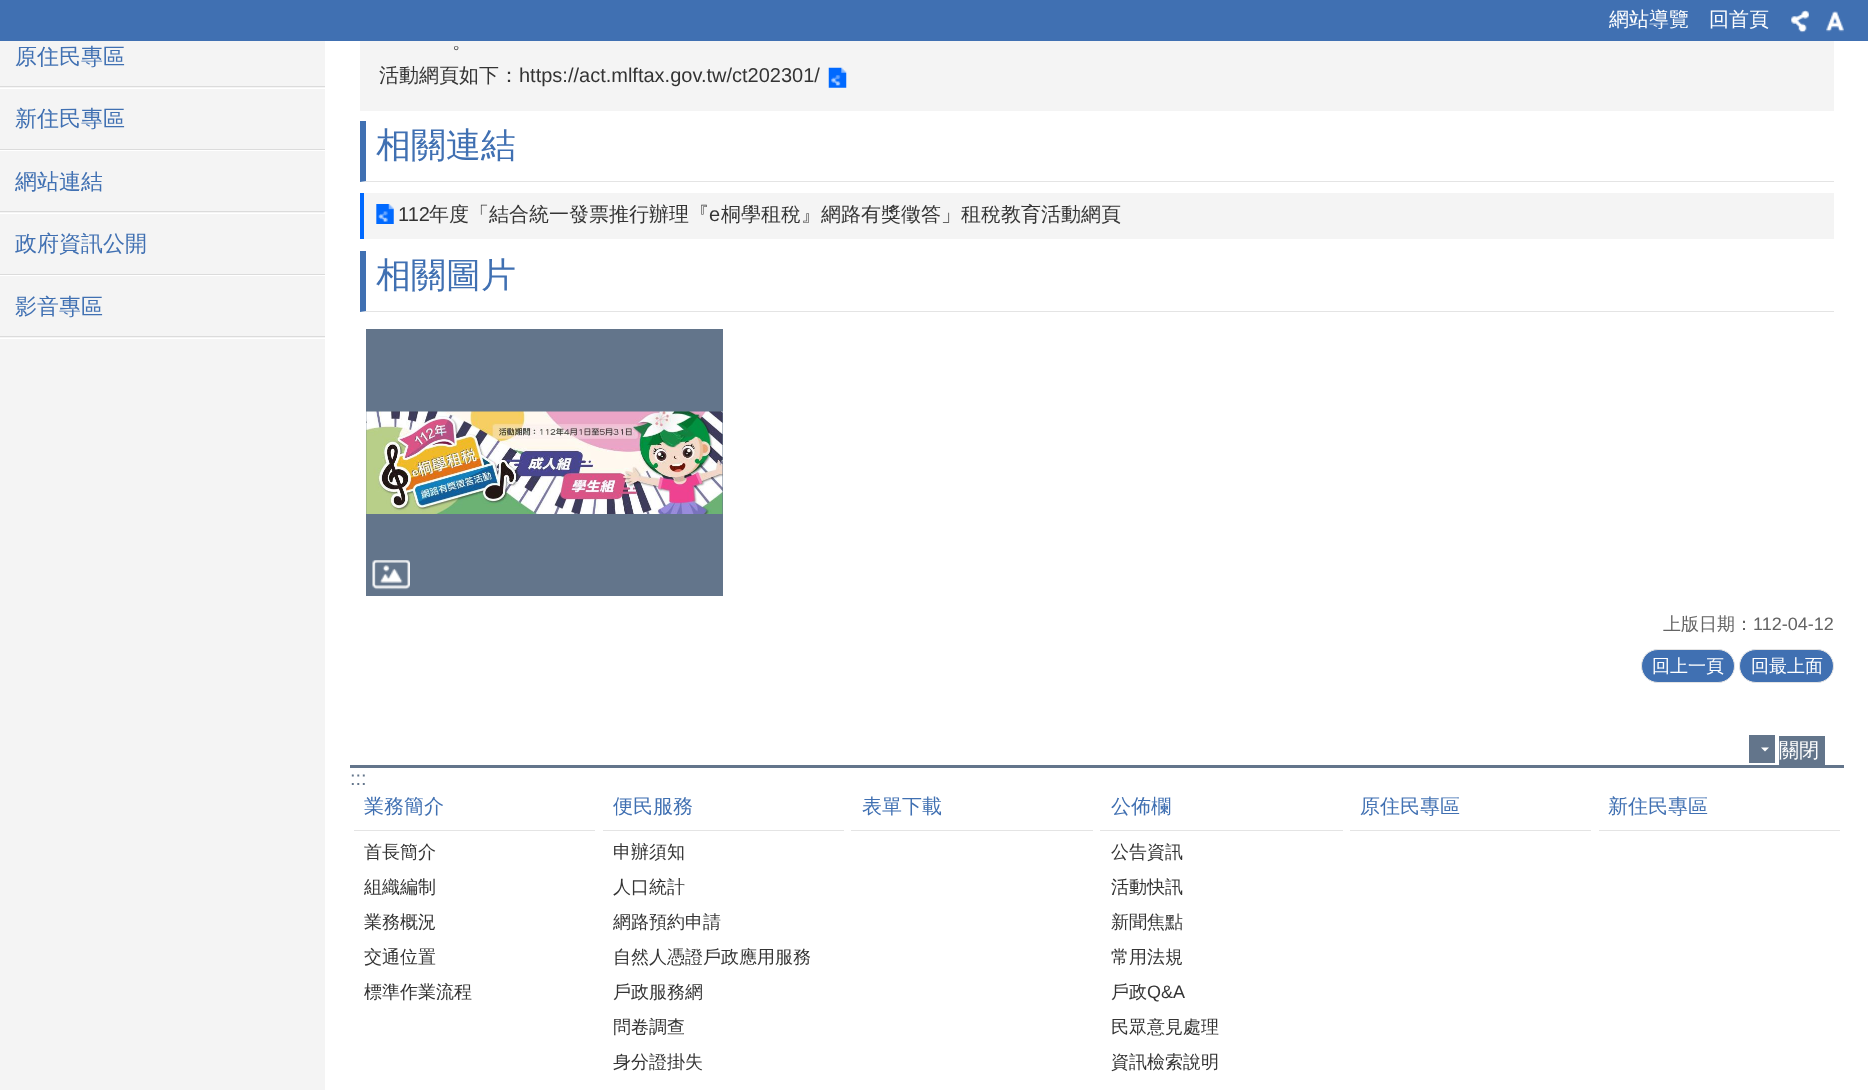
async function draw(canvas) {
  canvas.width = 1868
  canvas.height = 1090
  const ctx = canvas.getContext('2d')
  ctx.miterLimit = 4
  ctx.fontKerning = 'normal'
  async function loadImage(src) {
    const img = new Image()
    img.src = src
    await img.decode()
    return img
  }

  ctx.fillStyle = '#fff'
  ctx.fillRect(0, 0, 1868, 1090)
  ctx.fillStyle = '#f4f4f4'
  ctx.fillRect(0, 41, 325, 1049)
  ctx.fillStyle = '#4070b2'
  ctx.fillRect(0, 0, 1868, 41)
  ctx.font = '500 20px WenQuanYi Zen Hei'
  ctx.fillStyle = '#fff'
  ctx.fillText('網站導覽', 1609, 26)
  ctx.fillText('回首頁', 1709, 26)
  ctx.drawImage(await loadImage('image0.png'), 1791, 10, 18, 23)
  ctx.drawImage(await loadImage('image1.png'), 1826, 11, 18, 21)
  ctx.fillRect(0, 338, 325, 1)
  ctx.fillStyle = '#dbdbdb'
  ctx.fillRect(0, 86, 325, 1)
  ctx.font = '500 22px WenQuanYi Zen Hei'
  ctx.fillStyle = '#4070b2'
  ctx.fillText('原住民專區', 15, 64)
  ctx.fillStyle = '#fff'
  ctx.fillRect(0, 88, 325, 1)
  ctx.fillStyle = '#dbdbdb'
  ctx.fillRect(0, 149, 325, 1)
  ctx.fillStyle = '#4070b2'
  ctx.fillText('新住民專區', 15, 126)
  ctx.fillStyle = '#fff'
  ctx.fillRect(0, 150, 325, 1)
  ctx.fillStyle = '#dbdbdb'
  ctx.fillRect(0, 211, 325, 1)
  ctx.fillStyle = '#4070b2'
  ctx.fillText('網站連結', 15, 189)
  ctx.fillStyle = '#fff'
  ctx.fillRect(0, 213, 325, 1)
  ctx.fillStyle = '#dbdbdb'
  ctx.fillRect(0, 274, 325, 1)
  ctx.fillStyle = '#4070b2'
  ctx.fillText('政府資訊公開', 15, 251)
  ctx.fillStyle = '#fff'
  ctx.fillRect(0, 275, 325, 1)
  ctx.fillStyle = '#dbdbdb'
  ctx.fillRect(0, 336, 325, 1)
  ctx.fillStyle = '#4070b2'
  ctx.fillText('影音專區', 15, 314)
  ctx.fillStyle = '#f4f4f4'
  ctx.fillRect(360, 41, 1474, 70)
  ctx.font = '500 20px WenQuanYi Zen Hei'
  ctx.fillStyle = '#343434'
  ctx.fillText('。', 452, 48)
  ctx.fillText('活動網頁如下：', 379, 82)
  ctx.font = '20px Liberation Sans'
  ctx.fillText('https://act.mlftax.gov.tw/ct202301/', 519, 82)
  ctx.drawImage(await loadImage('image2.png'), 828, 67, 19, 21)
  ctx.fillStyle = '#e4e4e4'
  ctx.beginPath()
  ctx.moveTo(1834, 182)
  ctx.lineTo(360, 182)
  ctx.lineTo(366, 181)
  ctx.lineTo(1834, 181)
  ctx.closePath()
  ctx.fill()
  ctx.fillStyle = '#4070b2'
  ctx.beginPath()
  ctx.moveTo(360, 182)
  ctx.lineTo(360, 121)
  ctx.lineTo(366, 121)
  ctx.lineTo(366, 181)
  ctx.closePath()
  ctx.fill()
  ctx.font = '500 35px WenQuanYi Zen Hei'
  ctx.fillText('相關連結', 376, 157)
  ctx.fillStyle = '#f4f4f4'
  ctx.fillRect(364, 193, 1470, 46)
  ctx.fillStyle = '#0069ff'
  ctx.fillRect(360, 193, 4, 46)
  ctx.drawImage(await loadImage('image3.png'), 376, 204, 18, 20)
  ctx.font = '20px Liberation Sans'
  ctx.fillStyle = '#343434'
  ctx.fillText('112', 398, 221)
  ctx.font = '500 20px WenQuanYi Zen Hei'
  ctx.fillText('年度「結合統一發票推行辦理『', 429, 221)
  ctx.font = '20px Liberation Sans'
  ctx.fillText('e', 709, 221)
  ctx.font = '500 20px WenQuanYi Zen Hei'
  ctx.fillText('桐學租稅』網路有獎徵答」租稅教育活動網頁', 721, 221)
  ctx.fillStyle = '#e4e4e4'
  ctx.beginPath()
  ctx.moveTo(1834, 312)
  ctx.lineTo(360, 312)
  ctx.lineTo(366, 311)
  ctx.lineTo(1834, 311)
  ctx.closePath()
  ctx.fill()
  ctx.fillStyle = '#4070b2'
  ctx.beginPath()
  ctx.moveTo(360, 312)
  ctx.lineTo(360, 251)
  ctx.lineTo(366, 251)
  ctx.lineTo(366, 311)
  ctx.closePath()
  ctx.fill()
  ctx.font = '500 35px WenQuanYi Zen Hei'
  ctx.fillText('相關圖片', 376, 287)
  ctx.fillStyle = '#63758b'
  ctx.fillRect(366, 329, 357, 267)
  ctx.drawImage(await loadImage('image4.png'), 366, 411, 357, 103)
  ctx.drawImage(await loadImage('image5.png'), 372, 560, 38, 30)
  ctx.font = '500 18px WenQuanYi Zen Hei'
  ctx.fillStyle = '#646464'
  ctx.fillText('上版日期：', 1663, 630)
  ctx.font = '18px Liberation Sans'
  ctx.fillText('112-04-12', 1753, 630)
  ctx.fillStyle = '#4070b2'
  ctx.beginPath()
  ctx.roundRect(1641.5, 649.5, 93, 33, 16.5)
  ctx.fill()
  ctx.strokeStyle = '#e4e4e4'
  ctx.stroke()
  ctx.font = '500 18px WenQuanYi Zen Hei'
  ctx.fillStyle = '#fff'
  ctx.fillText('回上一頁', 1652, 672)
  ctx.fillStyle = '#4070b2'
  ctx.beginPath()
  ctx.roundRect(1739.5, 649.5, 94, 33, 16.5)
  ctx.fill()
  ctx.stroke()
  ctx.fillStyle = '#fff'
  ctx.fillText('回最上面', 1751, 672)
  ctx.fillStyle = '#63758b'
  ctx.fillRect(350, 765, 1494, 3)
  ctx.fillRect(1749, 735, 26, 28)
  ctx.fillRect(1779, 736, 46, 29)
  ctx.fillStyle = '#fff'
  ctx.beginPath()
  ctx.moveTo(1761, 747.5)
  ctx.lineTo(1769, 747.5)
  ctx.lineTo(1765, 751.5)
  ctx.closePath()
  ctx.fill()
  ctx.font = '500 20px WenQuanYi Zen Hei'
  ctx.fillText('關閉', 1779, 757)
  ctx.font = '20px Liberation Sans'
  ctx.fillStyle = '#63758b'
  ctx.fillText(':::', 350, 785)
  ctx.fillStyle = '#e4e4e4'
  ctx.fillRect(354, 830, 241, 1)
  ctx.font = '500 20px WenQuanYi Zen Hei'
  ctx.fillStyle = '#4070b2'
  ctx.fillText('業務簡介', 364, 813)
  ctx.font = '500 18px WenQuanYi Zen Hei'
  ctx.fillStyle = '#343434'
  ctx.fillText('首長簡介', 364, 858)
  ctx.fillText('組織編制', 364, 893)
  ctx.fillText('業務概況', 364, 928)
  ctx.fillText('交通位置', 364, 963)
  ctx.fillText('標準作業流程', 364, 998)
  ctx.fillStyle = '#e4e4e4'
  ctx.fillRect(603, 830, 241, 1)
  ctx.font = '500 20px WenQuanYi Zen Hei'
  ctx.fillStyle = '#4070b2'
  ctx.fillText('便民服務', 613, 813)
  ctx.font = '500 18px WenQuanYi Zen Hei'
  ctx.fillStyle = '#343434'
  ctx.fillText('申辦須知', 613, 858)
  ctx.fillText('人口統計', 613, 893)
  ctx.fillText('網路預約申請', 613, 928)
  ctx.fillText('自然人憑證戶政應用服務', 613, 963)
  ctx.fillText('戶政服務網', 613, 998)
  ctx.fillText('問卷調查', 613, 1033)
  ctx.fillText('身分證掛失', 613, 1068)
  ctx.fillStyle = '#e4e4e4'
  ctx.fillRect(851, 830, 242, 1)
  ctx.font = '500 20px WenQuanYi Zen Hei'
  ctx.fillStyle = '#4070b2'
  ctx.fillText('表單下載', 862, 813)
  ctx.fillStyle = '#e4e4e4'
  ctx.fillRect(1100, 830, 243, 1)
  ctx.fillStyle = '#4070b2'
  ctx.fillText('公佈欄', 1111, 813)
  ctx.font = '500 18px WenQuanYi Zen Hei'
  ctx.fillStyle = '#343434'
  ctx.fillText('公告資訊', 1111, 858)
  ctx.fillText('活動快訊', 1111, 893)
  ctx.fillText('新聞焦點', 1111, 928)
  ctx.fillText('常用法規', 1111, 963)
  ctx.fillText('戶政', 1111, 998)
  ctx.font = '18px Liberation Sans'
  ctx.fillText('Q&A', 1147, 998)
  ctx.font = '500 18px WenQuanYi Zen Hei'
  ctx.fillText('民眾意見處理', 1111, 1033)
  ctx.fillText('資訊檢索說明', 1111, 1068)
  ctx.fillStyle = '#e4e4e4'
  ctx.fillRect(1350, 830, 241, 1)
  ctx.font = '500 20px WenQuanYi Zen Hei'
  ctx.fillStyle = '#4070b2'
  ctx.fillText('原住民專區', 1360, 813)
  ctx.fillStyle = '#e4e4e4'
  ctx.fillRect(1599, 830, 241, 1)
  ctx.fillStyle = '#4070b2'
  ctx.fillText('新住民專區', 1608, 813)
}

draw(document.querySelector('canvas'))
